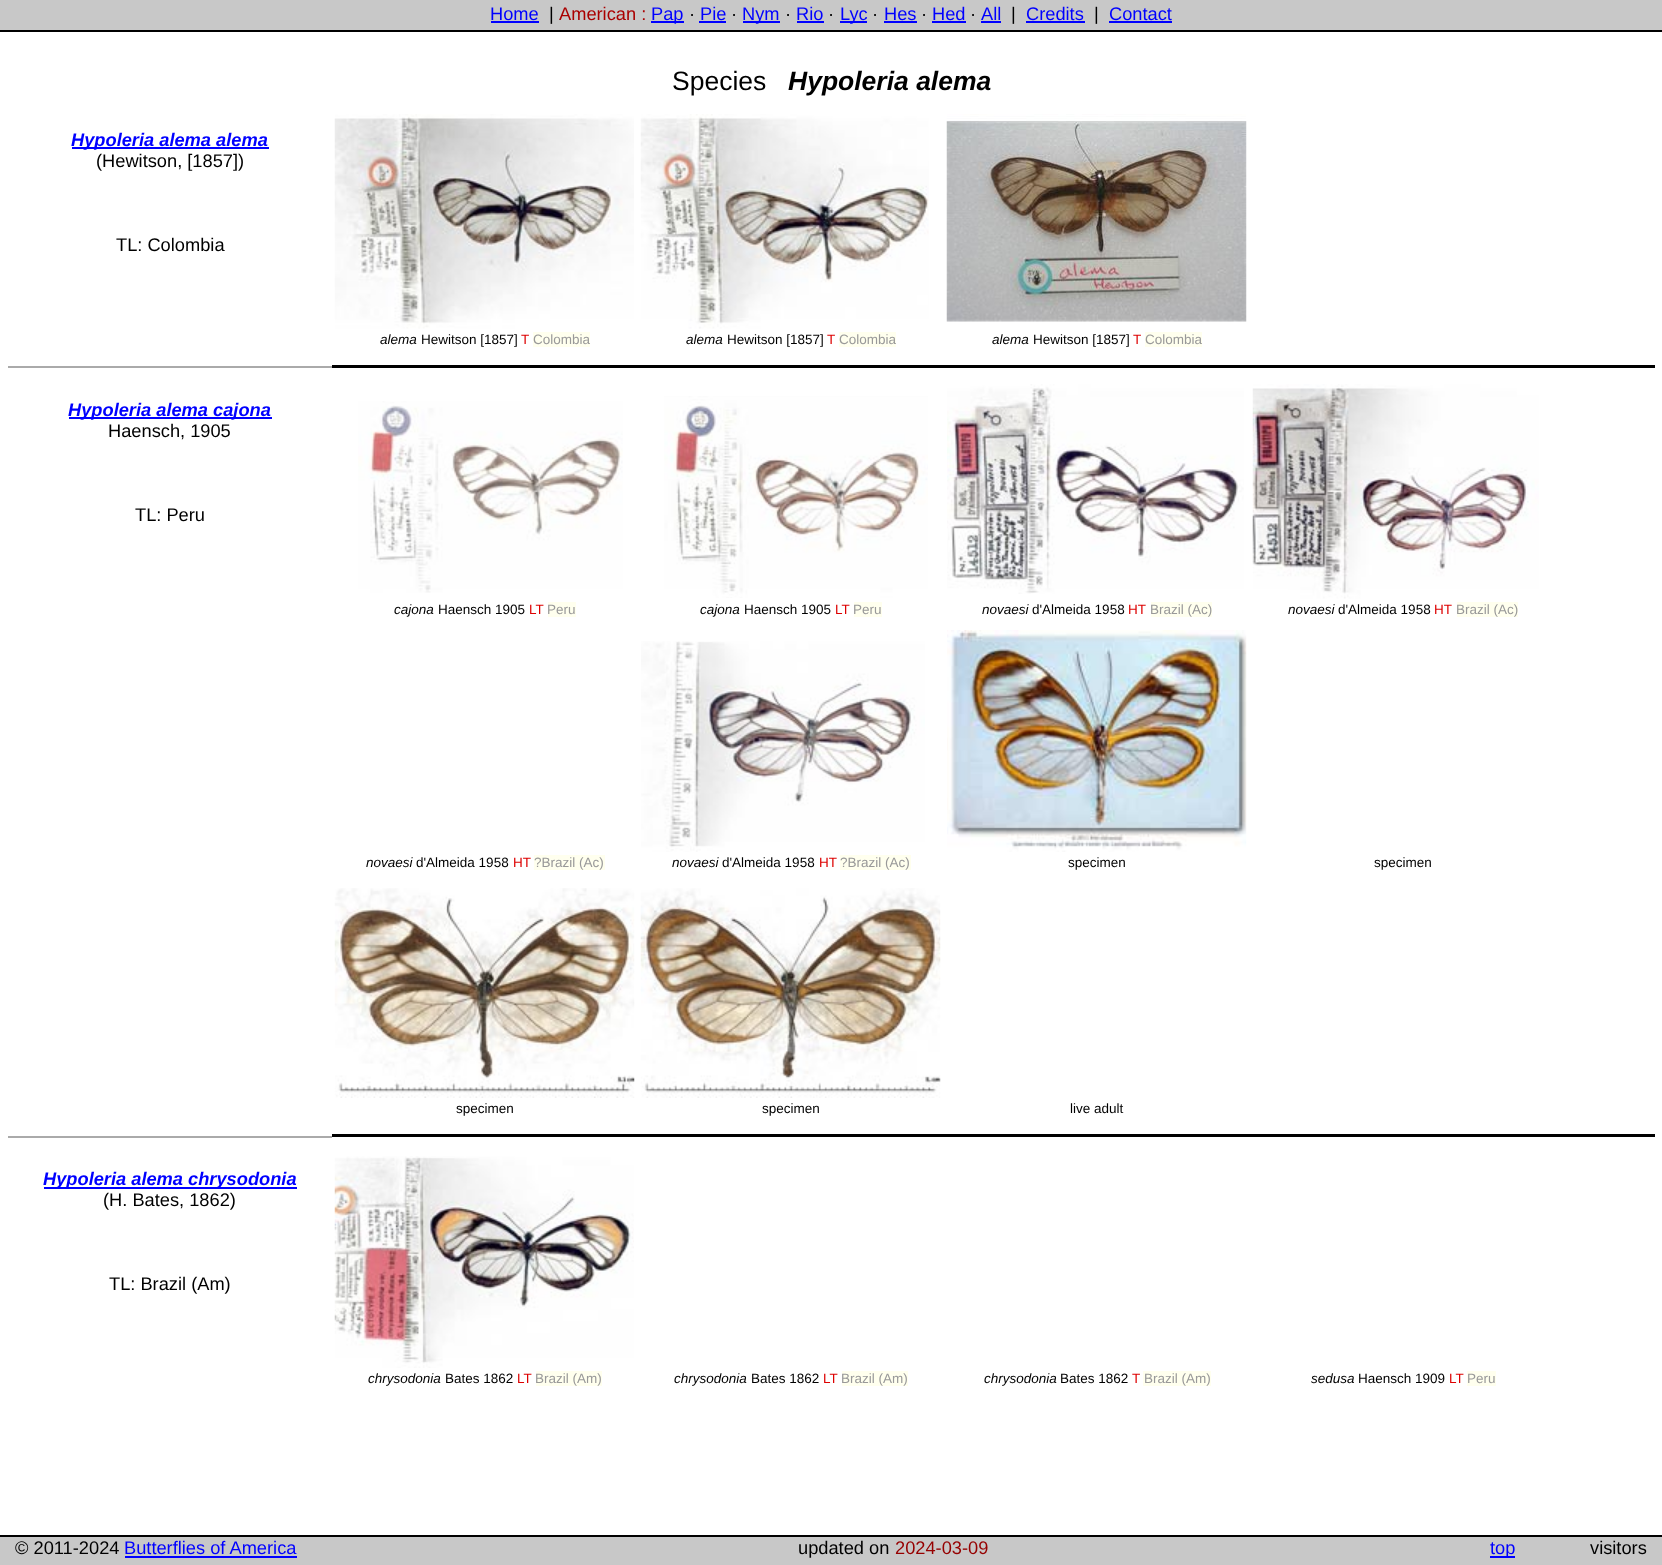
async function draw(canvas) {
  canvas.width = 1662
  canvas.height = 1565
  const ctx = canvas.getContext('2d')
  ctx.miterLimit = 4
  ctx.fontKerning = 'normal'
  async function loadImage(src) {
    const img = new Image()
    img.src = src
    await img.decode()
    return img
  }

  ctx.fillStyle = '#fff'
  ctx.fillRect(0, 0, 1662, 1565)
  ctx.fillStyle = '#c8c8c8'
  ctx.fillRect(0, 0, 1662, 30)
  ctx.fillStyle = '#000'
  ctx.fillRect(0, 30, 1662, 2)
  ctx.font = '18.25px Liberation Sans'
  ctx.fillStyle = '#00f'
  ctx.fillText('Home', 490, 20)
  ctx.fillRect(491, 21, 48, 2)
  ctx.fillStyle = '#000'
  ctx.fillText('|', 549, 20)
  ctx.fillStyle = '#a00'
  ctx.fillText('American :', 559, 20)
  ctx.fillStyle = '#00f'
  ctx.fillRect(651, 21, 33, 2)
  ctx.fillText('Pap', 651, 20)
  ctx.fillStyle = '#000'
  ctx.fillText('·', 689, 20)
  ctx.fillStyle = '#00f'
  ctx.fillText('Pie', 700, 20)
  ctx.fillRect(699, 21, 27, 2)
  ctx.fillStyle = '#000'
  ctx.fillText('·', 731, 20)
  ctx.fillStyle = '#00f'
  ctx.fillRect(743, 21, 37, 2)
  ctx.fillText('Nym', 742, 20)
  ctx.fillStyle = '#000'
  ctx.fillText('·', 785, 20)
  ctx.fillStyle = '#00f'
  ctx.fillText('Rio', 796, 20)
  ctx.fillRect(797, 21, 27, 2)
  ctx.fillStyle = '#000'
  ctx.fillText('·', 828, 20)
  ctx.fillStyle = '#00f'
  ctx.fillRect(840, 21, 27, 2)
  ctx.fillText('Lyc', 840, 20)
  ctx.fillStyle = '#000'
  ctx.fillText('·', 872, 20)
  ctx.fillStyle = '#00f'
  ctx.fillText('Hes', 884, 20)
  ctx.fillRect(884, 21, 33, 2)
  ctx.fillStyle = '#000'
  ctx.fillText('·', 921, 20)
  ctx.fillStyle = '#00f'
  ctx.fillText('Hed', 932, 20)
  ctx.fillRect(932, 21, 34, 2)
  ctx.fillStyle = '#000'
  ctx.fillText('·', 970, 20)
  ctx.fillStyle = '#00f'
  ctx.fillText('All', 981, 20)
  ctx.fillRect(981, 21, 20, 2)
  ctx.fillStyle = '#000'
  ctx.fillText('|', 1011, 20)
  ctx.fillStyle = '#00f'
  ctx.fillText('Credits', 1026, 20)
  ctx.fillRect(1026, 21, 59, 2)
  ctx.fillStyle = '#000'
  ctx.fillText('|', 1094, 20)
  ctx.fillStyle = '#00f'
  ctx.fillText('Contact', 1109, 20)
  ctx.fillRect(1109, 21, 63, 2)
  ctx.font = '26.5px Liberation Sans'
  ctx.fillStyle = '#000'
  ctx.fillText('Species', 672, 90)
  ctx.font = 'italic bold 26.5px Liberation Sans'
  ctx.fillText('Hypoleria alema', 788, 90)
  ctx.fillStyle = '#aaa'
  ctx.fillRect(8, 366, 324, 2)
  ctx.fillStyle = '#00f'
  ctx.fillRect(72, 147, 197, 2)
  ctx.font = 'italic bold 18.25px Liberation Sans'
  ctx.fillText('Hypoleria alema alema', 71, 146)
  ctx.font = '18.25px Liberation Sans'
  ctx.fillStyle = '#000'
  ctx.fillText('(Hewitson, [1857])', 96, 167)
  ctx.fillText('TL: Colombia', 116, 251)
  ctx.fillRect(332, 365, 1323, 3)
  ctx.drawImage(await loadImage('image0.png'), 334, 114, 300, 215)
  ctx.font = 'italic 13.5px Liberation Sans'
  ctx.fillText('alema', 380, 344)
  ctx.font = '13.5px Liberation Sans'
  ctx.fillText('Hewitson [1857]', 421, 344)
  ctx.fillStyle = '#d00'
  ctx.fillText('T', 521, 344)
  ctx.fillStyle = '#ffe'
  ctx.fillRect(533, 332, 57, 15)
  ctx.fillStyle = '#999'
  ctx.fillText('Colombia', 533, 344)
  ctx.drawImage(await loadImage('image1.png'), 640, 114, 289, 215)
  ctx.font = 'italic 13.5px Liberation Sans'
  ctx.fillStyle = '#000'
  ctx.fillText('alema', 686, 344)
  ctx.font = '13.5px Liberation Sans'
  ctx.fillText('Hewitson [1857]', 727, 344)
  ctx.fillStyle = '#d00'
  ctx.fillText('T', 827, 344)
  ctx.fillStyle = '#ffe'
  ctx.fillRect(839, 332, 57, 15)
  ctx.fillStyle = '#999'
  ctx.fillText('Colombia', 839, 344)
  ctx.drawImage(await loadImage('image2.png'), 946, 114, 301, 208)
  ctx.font = 'italic 13.5px Liberation Sans'
  ctx.fillStyle = '#000'
  ctx.fillText('alema', 992, 344)
  ctx.font = '13.5px Liberation Sans'
  ctx.fillText('Hewitson [1857]', 1033, 344)
  ctx.fillStyle = '#d00'
  ctx.fillText('T', 1133, 344)
  ctx.fillStyle = '#ffe'
  ctx.fillRect(1145, 332, 57, 15)
  ctx.fillStyle = '#999'
  ctx.fillText('Colombia', 1145, 344)
  ctx.fillStyle = '#aaa'
  ctx.fillRect(8, 1136, 324, 2)
  ctx.fillStyle = '#00f'
  ctx.fillRect(69, 417, 203, 2)
  ctx.font = 'italic bold 18.25px Liberation Sans'
  ctx.fillText('Hypoleria alema cajona', 68, 416)
  ctx.font = '18.25px Liberation Sans'
  ctx.fillStyle = '#000'
  ctx.fillText('Haensch, 1905', 108, 437)
  ctx.fillText('TL: Peru', 135, 521)
  ctx.fillRect(332, 1134, 1323, 3)
  ctx.drawImage(await loadImage('image3.png'), 358, 401, 265, 192)
  ctx.font = 'italic 13.5px Liberation Sans'
  ctx.fillText('cajona', 394, 614)
  ctx.font = '13.5px Liberation Sans'
  ctx.fillText('Haensch 1905', 438, 614)
  ctx.fillStyle = '#d00'
  ctx.fillText('LT', 529, 614)
  ctx.fillStyle = '#ffe'
  ctx.fillRect(548, 602, 28, 15)
  ctx.fillStyle = '#999'
  ctx.fillText('Peru', 547, 614)
  ctx.drawImage(await loadImage('image4.png'), 664, 396, 264, 202)
  ctx.font = 'italic 13.5px Liberation Sans'
  ctx.fillStyle = '#000'
  ctx.fillText('cajona', 700, 614)
  ctx.font = '13.5px Liberation Sans'
  ctx.fillText('Haensch 1905', 744, 614)
  ctx.fillStyle = '#d00'
  ctx.fillText('LT', 835, 614)
  ctx.fillStyle = '#ffe'
  ctx.fillRect(854, 602, 28, 15)
  ctx.fillStyle = '#999'
  ctx.fillText('Peru', 853, 614)
  ctx.drawImage(await loadImage('image5.png'), 947, 384, 297, 210)
  ctx.font = 'italic 13.5px Liberation Sans'
  ctx.fillStyle = '#000'
  ctx.fillText('novaesi', 982, 614)
  ctx.font = '13.5px Liberation Sans'
  ctx.fillText('d\'Almeida 1958', 1032, 614)
  ctx.fillStyle = '#d00'
  ctx.fillText('HT', 1128, 614)
  ctx.fillStyle = '#ffe'
  ctx.fillRect(1151, 602, 61, 15)
  ctx.fillStyle = '#999'
  ctx.fillText('Brazil (Ac)', 1150, 614)
  ctx.drawImage(await loadImage('image6.png'), 1252, 384, 287, 215)
  ctx.font = 'italic 13.5px Liberation Sans'
  ctx.fillStyle = '#000'
  ctx.fillText('novaesi', 1288, 614)
  ctx.font = '13.5px Liberation Sans'
  ctx.fillText('d\'Almeida 1958', 1338, 614)
  ctx.fillStyle = '#d00'
  ctx.fillText('HT', 1434, 614)
  ctx.fillStyle = '#ffe'
  ctx.fillRect(1457, 602, 61, 15)
  ctx.fillStyle = '#999'
  ctx.fillText('Brazil (Ac)', 1456, 614)
  ctx.font = 'italic 13.5px Liberation Sans'
  ctx.fillStyle = '#000'
  ctx.fillText('novaesi', 366, 867)
  ctx.font = '13.5px Liberation Sans'
  ctx.fillText('d\'Almeida 1958', 416, 867)
  ctx.fillStyle = '#d00'
  ctx.fillText('HT', 513, 867)
  ctx.fillStyle = '#ffe'
  ctx.fillRect(534, 855, 71, 15)
  ctx.fillStyle = '#999'
  ctx.fillText('?Brazil (Ac)', 534, 867)
  ctx.drawImage(await loadImage('image7.png'), 641, 641, 284, 211)
  ctx.font = 'italic 13.5px Liberation Sans'
  ctx.fillStyle = '#000'
  ctx.fillText('novaesi', 672, 867)
  ctx.font = '13.5px Liberation Sans'
  ctx.fillText('d\'Almeida 1958', 722, 867)
  ctx.fillStyle = '#d00'
  ctx.fillText('HT', 819, 867)
  ctx.fillStyle = '#ffe'
  ctx.fillRect(840, 855, 71, 15)
  ctx.fillStyle = '#999'
  ctx.fillText('?Brazil (Ac)', 840, 867)
  ctx.drawImage(await loadImage('image8.png'), 947, 630, 300, 222)
  ctx.fillStyle = '#000'
  ctx.fillText('specimen', 1068, 867)
  ctx.fillText('specimen', 1374, 867)
  ctx.drawImage(await loadImage('image9.png'), 334, 888, 301, 210)
  ctx.fillText('specimen', 456, 1113)
  ctx.drawImage(await loadImage('image10.png'), 640, 888, 301, 210)
  ctx.fillText('specimen', 762, 1113)
  ctx.fillText('live adult', 1070, 1113)
  ctx.fillStyle = '#00f'
  ctx.fillRect(44, 1187, 253, 2)
  ctx.font = 'italic bold 18.25px Liberation Sans'
  ctx.fillText('Hypoleria alema chrysodonia', 43, 1185)
  ctx.font = '18.25px Liberation Sans'
  ctx.fillStyle = '#000'
  ctx.fillText('(H. Bates, 1862)', 103, 1206)
  ctx.fillText('TL: Brazil (Am)', 109, 1290)
  ctx.drawImage(await loadImage('image11.png'), 334, 1156, 300, 212)
  ctx.font = 'italic 13.5px Liberation Sans'
  ctx.fillText('chrysodonia', 368, 1383)
  ctx.font = '13.5px Liberation Sans'
  ctx.fillText('Bates 1862', 445, 1383)
  ctx.fillStyle = '#d00'
  ctx.fillText('LT', 517, 1383)
  ctx.fillStyle = '#ffe'
  ctx.fillRect(536, 1371, 66, 15)
  ctx.fillStyle = '#999'
  ctx.fillText('Brazil (Am)', 535, 1383)
  ctx.font = 'italic 13.5px Liberation Sans'
  ctx.fillStyle = '#000'
  ctx.fillText('chrysodonia', 674, 1383)
  ctx.font = '13.5px Liberation Sans'
  ctx.fillText('Bates 1862', 751, 1383)
  ctx.fillStyle = '#d00'
  ctx.fillText('LT', 823, 1383)
  ctx.fillStyle = '#ffe'
  ctx.fillRect(842, 1371, 66, 15)
  ctx.fillStyle = '#999'
  ctx.fillText('Brazil (Am)', 841, 1383)
  ctx.font = 'italic 13.5px Liberation Sans'
  ctx.fillStyle = '#000'
  ctx.fillText('chrysodonia', 984, 1383)
  ctx.font = '13.5px Liberation Sans'
  ctx.fillText('Bates 1862', 1060, 1383)
  ctx.fillStyle = '#d00'
  ctx.fillText('T', 1132, 1383)
  ctx.fillStyle = '#ffe'
  ctx.fillRect(1143, 1371, 68, 15)
  ctx.fillStyle = '#999'
  ctx.fillText('Brazil (Am)', 1144, 1383)
  ctx.font = 'italic 13.5px Liberation Sans'
  ctx.fillStyle = '#000'
  ctx.fillText('sedusa', 1311, 1383)
  ctx.font = '13.5px Liberation Sans'
  ctx.fillText('Haensch 1909', 1358, 1383)
  ctx.fillStyle = '#d00'
  ctx.fillText('LT', 1449, 1383)
  ctx.fillStyle = '#ffe'
  ctx.fillRect(1467, 1371, 29, 15)
  ctx.fillStyle = '#999'
  ctx.fillText('Peru', 1467, 1383)
  ctx.fillStyle = '#c8c8c8'
  ctx.fillRect(0, 1537, 1662, 28)
  ctx.fillStyle = '#000'
  ctx.fillRect(0, 1535, 1662, 2)
  ctx.font = '18.25px Liberation Sans'
  ctx.fillText('© 2011-2024', 15, 1554)
  ctx.fillStyle = '#00f'
  ctx.fillText('Butterflies of America', 124, 1554)
  ctx.fillRect(125, 1556, 172, 2)
  ctx.fillStyle = '#000'
  ctx.fillText('updated on', 798, 1554)
  ctx.fillStyle = '#960000'
  ctx.fillText('2024-03-09', 895, 1554)
  ctx.fillStyle = '#00f'
  ctx.fillRect(1490, 1556, 25, 2)
  ctx.fillText('top', 1490, 1554)
  ctx.fillStyle = '#000'
  ctx.fillText('visitors', 1590, 1554)
}

draw(document.querySelector('canvas'))
